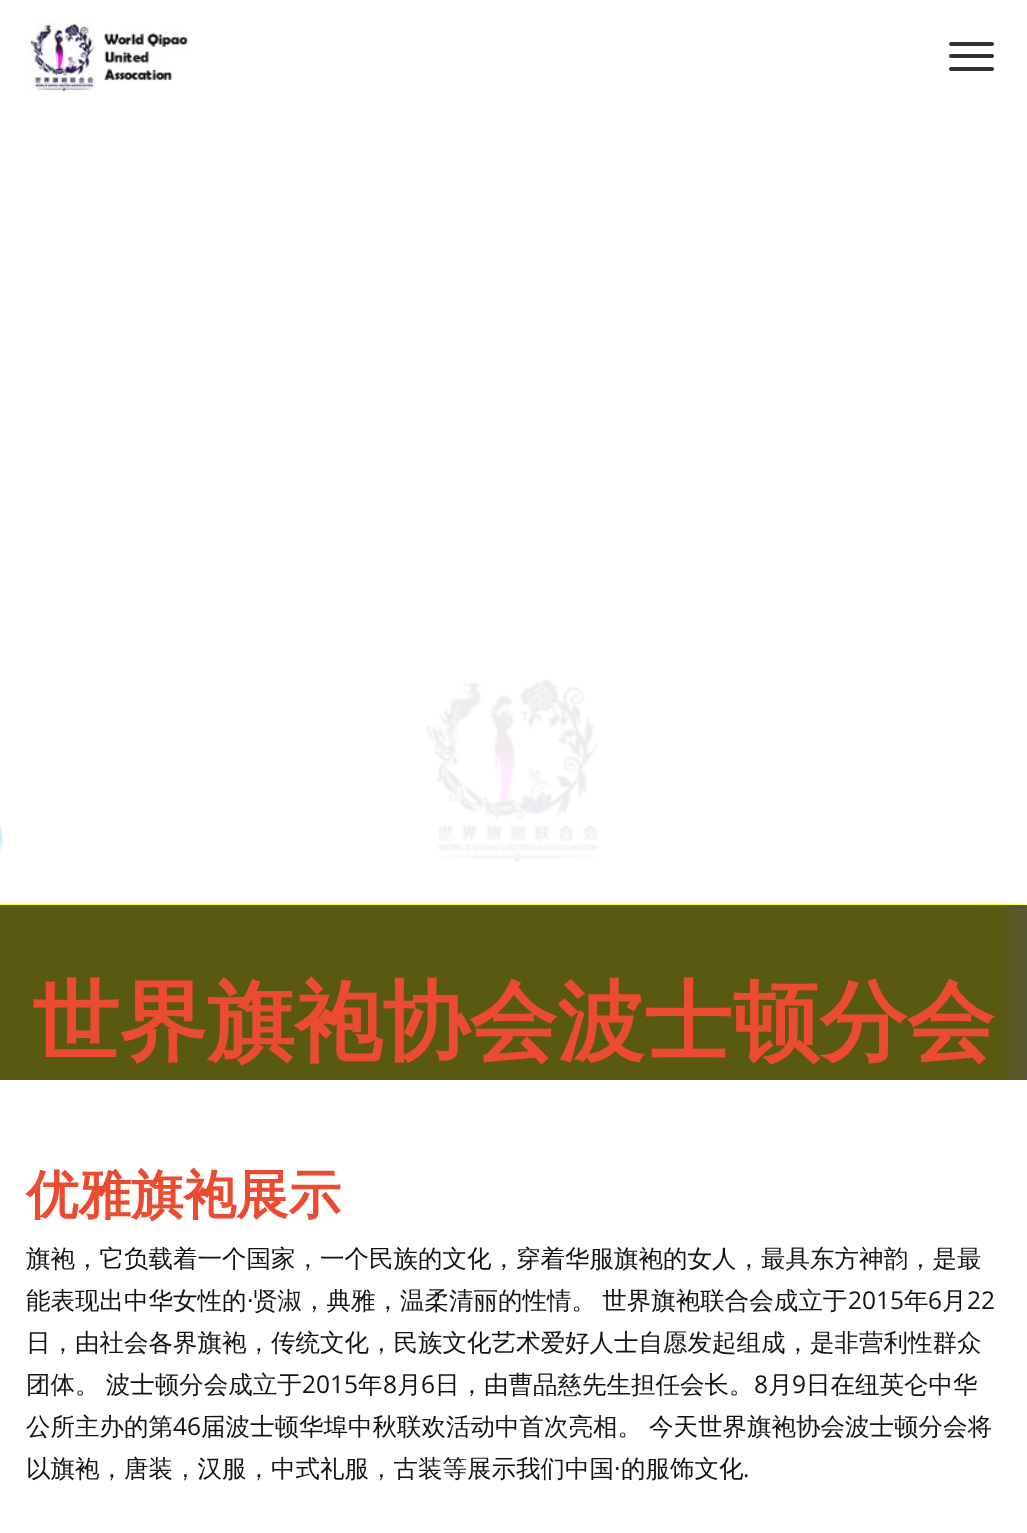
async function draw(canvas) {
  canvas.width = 1027
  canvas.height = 1533
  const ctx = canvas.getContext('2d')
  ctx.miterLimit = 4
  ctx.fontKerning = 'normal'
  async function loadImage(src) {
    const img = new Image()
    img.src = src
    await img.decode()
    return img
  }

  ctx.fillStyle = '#fff'
  ctx.fillRect(0, 0, 1027, 1533)
  ctx.fillStyle = '#595959'
  ctx.fillRect(998, 905, 29, 175)
  ctx.drawImage(await loadImage('image0.png'), 26, 21, 164, 70)
  ctx.fillStyle = '#2e3236'
  ctx.beginPath()
  ctx.roundRect(949, 42, 45, 4, 2)
  ctx.fill()
  ctx.beginPath()
  ctx.roundRect(949, 54, 45, 4, 2)
  ctx.fill()
  ctx.beginPath()
  ctx.roundRect(949, 67, 45, 4, 2)
  ctx.fill()
  ctx.drawImage(await loadImage('image1.png'), 0, 825, 3, 29)
  ctx.drawImage(await loadImage('image2.png'), 427, 679, 172, 183)
  ctx.drawImage(await loadImage('image3.png'), 0, 904, 1027, 176)
  ctx.font = 'bold 87.5px WenQuanYi Zen Hei'
  ctx.fillStyle = '#eb4c31'
  ctx.fillText('世界旗袍协会波士顿分会', 32, 1052)
  ctx.font = 'bold 52.5px WenQuanYi Zen Hei'
  ctx.fillText('优雅旗袍展示', 26, 1213)
  ctx.font = '500 24.5px WenQuanYi Zen Hei'
  ctx.fillStyle = '#121212'
  ctx.fillText('旗袍，它负载着一个国家，一个民族的文化，穿着华服旗袍的女人，最具东方神韵，是最', 26, 1267)
  ctx.fillText('能表现出中华女性的', 26, 1309)
  ctx.font = '24.5px Open Sans'
  ctx.fillText('·', 247, 1309)
  ctx.wordSpacing = '-1px'
  ctx.font = '500 24.5px WenQuanYi Zen Hei'
  ctx.fillText('贤淑，典雅，温柔清丽的性情。 世界旗袍联合会成立于', 253, 1309)
  ctx.wordSpacing = '0px'
  ctx.font = '24.5px Open Sans'
  ctx.fillText('2015', 848, 1309)
  ctx.font = '500 24.5px WenQuanYi Zen Hei'
  ctx.fillText('年', 904, 1309)
  ctx.font = '24.5px Open Sans'
  ctx.fillText('6', 928, 1309)
  ctx.font = '500 24.5px WenQuanYi Zen Hei'
  ctx.fillText('月', 942, 1309)
  ctx.font = '24.5px Open Sans'
  ctx.fillText('22', 967, 1309)
  ctx.font = '500 24.5px WenQuanYi Zen Hei'
  ctx.fillText('日，由社会各界旗袍，传统文化，民族文化艺术爱好人士自愿发起组成，是非营利性群众', 26, 1351)
  ctx.wordSpacing = '-1px'
  ctx.fillText('团体。 波士顿分会成立于', 26, 1393)
  ctx.wordSpacing = '0px'
  ctx.font = '24.5px Open Sans'
  ctx.fillText('2015', 302, 1393)
  ctx.font = '500 24.5px WenQuanYi Zen Hei'
  ctx.fillText('年', 358, 1393)
  ctx.font = '24.5px Open Sans'
  ctx.fillText('8', 383, 1393)
  ctx.font = '500 24.5px WenQuanYi Zen Hei'
  ctx.fillText('月', 397, 1393)
  ctx.font = '24.5px Open Sans'
  ctx.fillText('6', 421, 1393)
  ctx.font = '500 24.5px WenQuanYi Zen Hei'
  ctx.fillText('日，由曹品慈先生担任会长。', 435, 1393)
  ctx.font = '24.5px Open Sans'
  ctx.fillText('8', 754, 1393)
  ctx.font = '500 24.5px WenQuanYi Zen Hei'
  ctx.fillText('月', 768, 1393)
  ctx.font = '24.5px Open Sans'
  ctx.fillText('9', 792, 1393)
  ctx.font = '500 24.5px WenQuanYi Zen Hei'
  ctx.fillText('日在纽英仑中华', 806, 1393)
  ctx.fillText('公所主办的第', 26, 1435)
  ctx.font = '24.5px Open Sans'
  ctx.fillText('46', 173, 1435)
  ctx.font = '500 24.5px WenQuanYi Zen Hei'
  ctx.fillText('届波士顿华埠中秋联欢活动中首次亮相。', 201, 1435)
  ctx.fillText('今天世界旗袍协会波士顿分会将', 649, 1435)
  ctx.fillText('以旗袍，唐装，汉服，中式礼服，古装等展示我们中国', 26, 1477)
  ctx.font = '24.5px Open Sans'
  ctx.fillText('·', 614, 1477)
  ctx.font = '500 24.5px WenQuanYi Zen Hei'
  ctx.fillText('的服饰文化', 621, 1477)
  ctx.font = '24.5px Open Sans'
  ctx.fillText('.', 743, 1477)
}

draw(document.querySelector('canvas'))
